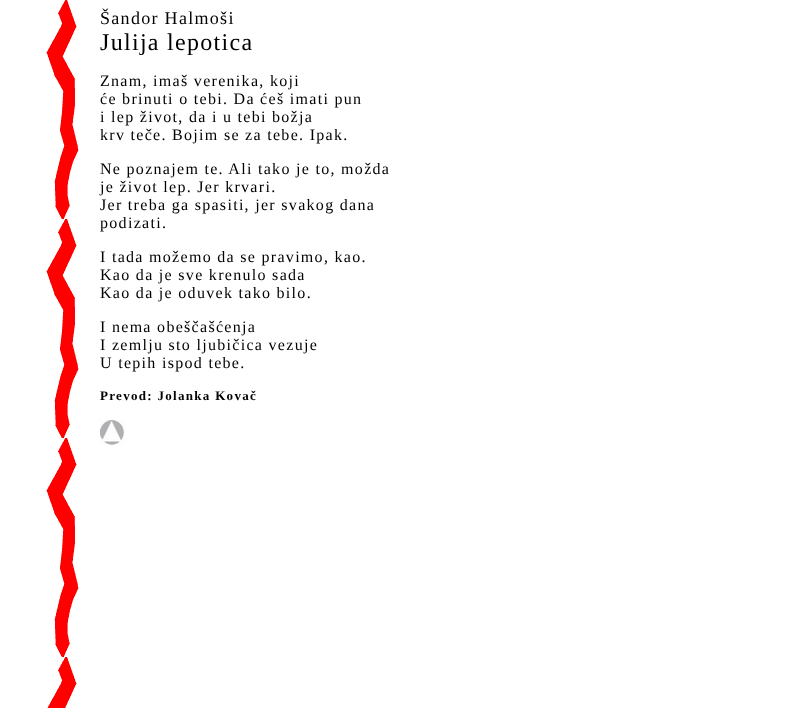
async function draw(canvas) {
  canvas.width = 787
  canvas.height = 708
  const ctx = canvas.getContext('2d')
  ctx.miterLimit = 4
  ctx.fontKerning = 'normal'
  async function loadImage(src) {
    const img = new Image()
    img.src = src
    await img.decode()
    return img
  }

  ctx.fillStyle = '#fff'
  ctx.fillRect(0, 0, 787, 708)
  ctx.drawImage(await loadImage('image0.png'), 46, 0, 33, 708)
  ctx.letterSpacing = '1.3px'
  ctx.font = '18px Liberation Serif'
  ctx.fillStyle = '#000'
  ctx.fillText('Šandor Halmoši', 100, 24)
  ctx.font = '24px Liberation Serif'
  ctx.fillText('Julija lepotica', 100, 50)
  ctx.font = '16px Liberation Serif'
  ctx.fillText('Znam, imaš verenika, koji', 100, 86)
  ctx.fillText('će brinuti o tebi. Da ćeš imati pun', 100, 104)
  ctx.fillText('i lep život, da i u tebi božja', 100, 122)
  ctx.fillText('krv teče. Bojim se za tebe. Ipak.', 100, 140)
  ctx.fillText('Ne poznajem te. Ali tako je to, možda', 100, 174)
  ctx.fillText('je život lep. Jer krvari.', 100, 192)
  ctx.fillText('Jer treba ga spasiti, jer svakog dana', 100, 210)
  ctx.fillText('podizati.', 100, 228)
  ctx.fillText('I tada možemo da se pravimo, kao.', 100, 262)
  ctx.fillText('Kao da je sve krenulo sada', 100, 280)
  ctx.fillText('Kao da je oduvek tako bilo.', 100, 298)
  ctx.fillText('I nema obeščašćenja', 100, 332)
  ctx.fillText('I zemlju sto ljubičica vezuje', 100, 350)
  ctx.fillText('U tepih ispod tebe.', 100, 368)
  ctx.font = 'bold 13px Liberation Serif'
  ctx.fillText('Prevod: Jolanka Kovač', 100, 400)
  ctx.drawImage(await loadImage('image1.png'), 100, 420, 26, 25)
}

draw(document.querySelector('canvas'))
